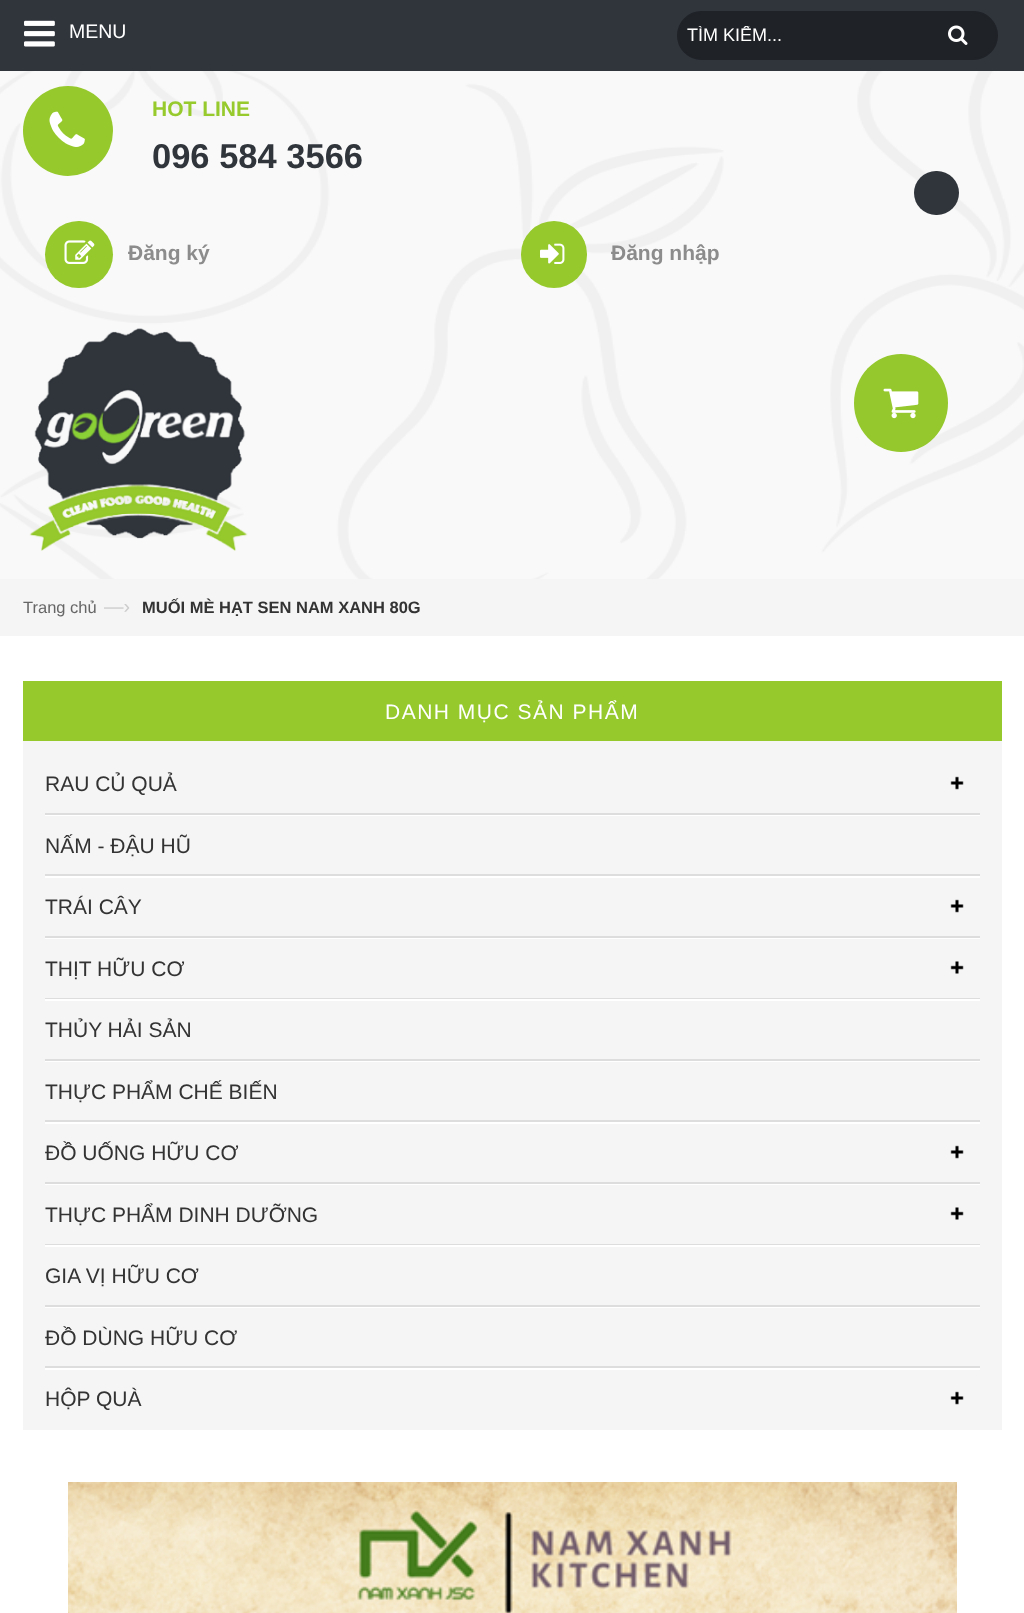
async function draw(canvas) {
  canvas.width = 1024
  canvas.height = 1613
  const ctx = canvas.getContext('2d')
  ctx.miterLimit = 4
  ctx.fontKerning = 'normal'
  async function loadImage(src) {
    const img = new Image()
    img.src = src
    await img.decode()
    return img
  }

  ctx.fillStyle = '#fff'
  ctx.fillRect(0, 0, 1024, 1613)
  ctx.drawImage(await loadImage('image0.png'), 0, 71, 1024, 508)
  ctx.fillStyle = '#30353c'
  ctx.fillRect(0, 0, 1024, 71)
  ctx.drawImage(await loadImage('image1.png'), 24, 20, 31, 27)
  ctx.font = '19.5px Liberation Sans'
  ctx.fillStyle = '#fff'
  ctx.fillText('MENU', 69, 38)
  ctx.fillStyle = '#1f2227'
  ctx.beginPath()
  ctx.roundRect(678, 12, 251, 47, [23.5, 0, 0, 23.5])
  ctx.fill()
  ctx.strokeStyle = '#1f2227'
  ctx.lineWidth = 2
  ctx.stroke()
  ctx.save()
  ctx.beginPath()
  ctx.rect(687, 26, 233, 21)
  ctx.clip()
  ctx.font = '18px Liberation Sans'
  ctx.fillStyle = '#fff'
  ctx.fillText('TÌM KIẾM...', 687, 41)
  ctx.restore()
  ctx.beginPath()
  ctx.roundRect(925, 12, 72, 47, [0, 23.5, 23.5, 0])
  ctx.fill()
  ctx.stroke()
  ctx.drawImage(await loadImage('image2.png'), 948, 25, 20, 20)
  ctx.fillStyle = '#95c92c'
  ctx.beginPath()
  ctx.arc(68, 131, 45, 0, 2 * Math.PI)
  ctx.fill()
  ctx.drawImage(await loadImage('image3.png'), 49, 111, 36, 36)
  ctx.font = 'bold 21px Liberation Sans'
  ctx.fillStyle = '#96ca2d'
  ctx.fillText('HOT LINE', 152, 116)
  ctx.font = 'bold 34.5px Liberation Sans'
  ctx.fillStyle = '#30353c'
  ctx.fillText('096 584 3566', 152, 168)
  ctx.fillStyle = '#95c92c'
  ctx.beginPath()
  ctx.roundRect(45, 221, 68, 67, 33.5)
  ctx.fill()
  ctx.drawImage(await loadImage('image4.png'), 64, 240, 31, 24)
  ctx.font = 'bold 21px Liberation Sans'
  ctx.fillStyle = '#8c8c8c'
  ctx.fillText('Đăng ký', 128, 260)
  ctx.fillStyle = '#95c92c'
  ctx.beginPath()
  ctx.roundRect(521, 221, 66, 67, 33)
  ctx.fill()
  ctx.drawImage(await loadImage('image5.png'), 540, 243, 25, 21)
  ctx.fillStyle = '#8c8c8c'
  ctx.fillText('Đăng nhập', 611, 260)
  ctx.fillStyle = '#30353c'
  ctx.beginPath()
  ctx.roundRect(914, 171, 45, 44, 22)
  ctx.fill()
  ctx.fillStyle = '#94c82c'
  ctx.beginPath()
  ctx.ellipse(901, 403, 47, 49, 0, 0, 2 * Math.PI)
  ctx.fill()
  ctx.drawImage(await loadImage('image6.png'), 883, 388, 36, 31)
  ctx.drawImage(await loadImage('image7.png'), 29, 328, 219, 223)
  ctx.fillStyle = '#f5f5f5'
  ctx.fillRect(0, 579, 1024, 57)
  ctx.font = '16.5px Liberation Sans'
  ctx.fillStyle = '#666'
  ctx.fillText('Trang chủ', 23, 613)
  ctx.font = '19.5px Liberation Sans'
  ctx.fillStyle = '#ccc'
  ctx.fillText('—›', 104, 613)
  ctx.font = 'bold 16.5px Liberation Sans'
  ctx.fillStyle = '#333'
  ctx.fillText('MUỐI MÈ HẠT SEN NAM XANH 80G', 142, 613)
  ctx.fillStyle = '#f5f5f5'
  ctx.fillRect(23, 741, 979, 689)
  ctx.fillStyle = '#95c92c'
  ctx.fillRect(23, 681, 979, 60)
  ctx.letterSpacing = '1.5px'
  ctx.font = '21px Liberation Sans'
  ctx.fillStyle = '#fff'
  ctx.fillText('DANH MỤC SẢN PHẨM', 385, 719)
  ctx.beginPath()
  ctx.moveTo(45, 813)
  ctx.lineTo(45, 816)
  ctx.lineTo(980, 816)
  ctx.lineTo(980, 756)
  ctx.lineTo(980, 813)
  ctx.closePath()
  ctx.fill()
  ctx.fillStyle = '#ddd'
  ctx.beginPath()
  ctx.moveTo(45, 813)
  ctx.lineTo(45, 815)
  ctx.lineTo(980, 815)
  ctx.lineTo(980, 755)
  ctx.lineTo(980, 813)
  ctx.closePath()
  ctx.fill()
  ctx.letterSpacing = '0px'
  ctx.fillStyle = '#333'
  ctx.fillText('RAU CỦ QUẢ', 45, 791)
  ctx.drawImage(await loadImage('image8.png'), 950, 776, 14, 14)
  ctx.fillStyle = '#fff'
  ctx.beginPath()
  ctx.moveTo(45, 874)
  ctx.lineTo(45, 878)
  ctx.lineTo(980, 878)
  ctx.lineTo(980, 818)
  ctx.lineTo(980, 874)
  ctx.closePath()
  ctx.fill()
  ctx.fillStyle = '#ddd'
  ctx.beginPath()
  ctx.moveTo(45, 874)
  ctx.lineTo(45, 876)
  ctx.lineTo(980, 876)
  ctx.lineTo(980, 816)
  ctx.lineTo(980, 874)
  ctx.closePath()
  ctx.fill()
  ctx.fillStyle = '#333'
  ctx.fillText('NẤM - ĐẬU HŨ', 45, 853)
  ctx.fillStyle = '#fff'
  ctx.beginPath()
  ctx.moveTo(45, 936)
  ctx.lineTo(45, 939)
  ctx.lineTo(980, 939)
  ctx.lineTo(980, 879)
  ctx.lineTo(980, 936)
  ctx.closePath()
  ctx.fill()
  ctx.fillStyle = '#ddd'
  ctx.beginPath()
  ctx.moveTo(45, 936)
  ctx.lineTo(45, 938)
  ctx.lineTo(980, 938)
  ctx.lineTo(980, 878)
  ctx.lineTo(980, 936)
  ctx.closePath()
  ctx.fill()
  ctx.fillStyle = '#333'
  ctx.fillText('TRÁI CÂY', 45, 914)
  ctx.drawImage(await loadImage('image8.png'), 950, 899, 14, 14)
  ctx.fillStyle = '#fff'
  ctx.beginPath()
  ctx.moveTo(45, 998)
  ctx.lineTo(45, 1001)
  ctx.lineTo(980, 1001)
  ctx.lineTo(980, 941)
  ctx.lineTo(980, 998)
  ctx.closePath()
  ctx.fill()
  ctx.fillStyle = '#ddd'
  ctx.beginPath()
  ctx.moveTo(45, 998)
  ctx.lineTo(45, 999)
  ctx.lineTo(980, 999)
  ctx.lineTo(980, 939)
  ctx.lineTo(980, 998)
  ctx.closePath()
  ctx.fill()
  ctx.fillStyle = '#333'
  ctx.fillText('THỊT HỮU CƠ', 45, 976)
  ctx.drawImage(await loadImage('image9.png'), 950, 961, 14, 13)
  ctx.fillStyle = '#fff'
  ctx.beginPath()
  ctx.moveTo(45, 1059)
  ctx.lineTo(45, 1062)
  ctx.lineTo(980, 1062)
  ctx.lineTo(980, 1002)
  ctx.lineTo(980, 1059)
  ctx.closePath()
  ctx.fill()
  ctx.fillStyle = '#ddd'
  ctx.beginPath()
  ctx.moveTo(45, 1059)
  ctx.lineTo(45, 1061)
  ctx.lineTo(980, 1061)
  ctx.lineTo(980, 1001)
  ctx.lineTo(980, 1059)
  ctx.closePath()
  ctx.fill()
  ctx.fillStyle = '#333'
  ctx.fillText('THỦY HẢI SẢN', 45, 1037)
  ctx.fillStyle = '#fff'
  ctx.beginPath()
  ctx.moveTo(45, 1120)
  ctx.lineTo(45, 1124)
  ctx.lineTo(980, 1124)
  ctx.lineTo(980, 1064)
  ctx.lineTo(980, 1120)
  ctx.closePath()
  ctx.fill()
  ctx.fillStyle = '#ddd'
  ctx.beginPath()
  ctx.moveTo(45, 1120)
  ctx.lineTo(45, 1122)
  ctx.lineTo(980, 1122)
  ctx.lineTo(980, 1062)
  ctx.lineTo(980, 1120)
  ctx.closePath()
  ctx.fill()
  ctx.fillStyle = '#333'
  ctx.fillText('THỰC PHẨM CHẾ BIẾN', 45, 1099)
  ctx.fillStyle = '#fff'
  ctx.beginPath()
  ctx.moveTo(45, 1182)
  ctx.lineTo(45, 1185)
  ctx.lineTo(980, 1185)
  ctx.lineTo(980, 1125)
  ctx.lineTo(980, 1182)
  ctx.closePath()
  ctx.fill()
  ctx.fillStyle = '#ddd'
  ctx.beginPath()
  ctx.moveTo(45, 1182)
  ctx.lineTo(45, 1184)
  ctx.lineTo(980, 1184)
  ctx.lineTo(980, 1124)
  ctx.lineTo(980, 1182)
  ctx.closePath()
  ctx.fill()
  ctx.fillStyle = '#333'
  ctx.fillText('ĐỒ UỐNG HỮU CƠ', 45, 1160)
  ctx.drawImage(await loadImage('image8.png'), 950, 1145, 14, 14)
  ctx.fillStyle = '#fff'
  ctx.beginPath()
  ctx.moveTo(45, 1244)
  ctx.lineTo(45, 1247)
  ctx.lineTo(980, 1247)
  ctx.lineTo(980, 1187)
  ctx.lineTo(980, 1244)
  ctx.closePath()
  ctx.fill()
  ctx.fillStyle = '#ddd'
  ctx.beginPath()
  ctx.moveTo(45, 1244)
  ctx.lineTo(45, 1245)
  ctx.lineTo(980, 1245)
  ctx.lineTo(980, 1185)
  ctx.lineTo(980, 1244)
  ctx.closePath()
  ctx.fill()
  ctx.fillStyle = '#333'
  ctx.fillText('THỰC PHẨM DINH DƯỠNG', 45, 1222)
  ctx.drawImage(await loadImage('image9.png'), 950, 1207, 14, 13)
  ctx.fillStyle = '#fff'
  ctx.beginPath()
  ctx.moveTo(45, 1305)
  ctx.lineTo(45, 1308)
  ctx.lineTo(980, 1308)
  ctx.lineTo(980, 1248)
  ctx.lineTo(980, 1305)
  ctx.closePath()
  ctx.fill()
  ctx.fillStyle = '#ddd'
  ctx.beginPath()
  ctx.moveTo(45, 1305)
  ctx.lineTo(45, 1307)
  ctx.lineTo(980, 1307)
  ctx.lineTo(980, 1247)
  ctx.lineTo(980, 1305)
  ctx.closePath()
  ctx.fill()
  ctx.fillStyle = '#333'
  ctx.fillText('GIA VỊ HỮU CƠ', 45, 1283)
  ctx.fillStyle = '#fff'
  ctx.beginPath()
  ctx.moveTo(45, 1366)
  ctx.lineTo(45, 1370)
  ctx.lineTo(980, 1370)
  ctx.lineTo(980, 1310)
  ctx.lineTo(980, 1366)
  ctx.closePath()
  ctx.fill()
  ctx.fillStyle = '#ddd'
  ctx.beginPath()
  ctx.moveTo(45, 1366)
  ctx.lineTo(45, 1368)
  ctx.lineTo(980, 1368)
  ctx.lineTo(980, 1308)
  ctx.lineTo(980, 1366)
  ctx.closePath()
  ctx.fill()
  ctx.fillStyle = '#333'
  ctx.fillText('ĐỒ DÙNG HỮU CƠ', 45, 1345)
  ctx.fillText('HỘP QUÀ', 45, 1406)
  ctx.drawImage(await loadImage('image8.png'), 950, 1391, 14, 14)
  ctx.drawImage(await loadImage('image10.png'), 68, 1482, 889, 131)
}

draw(document.querySelector('canvas'))
